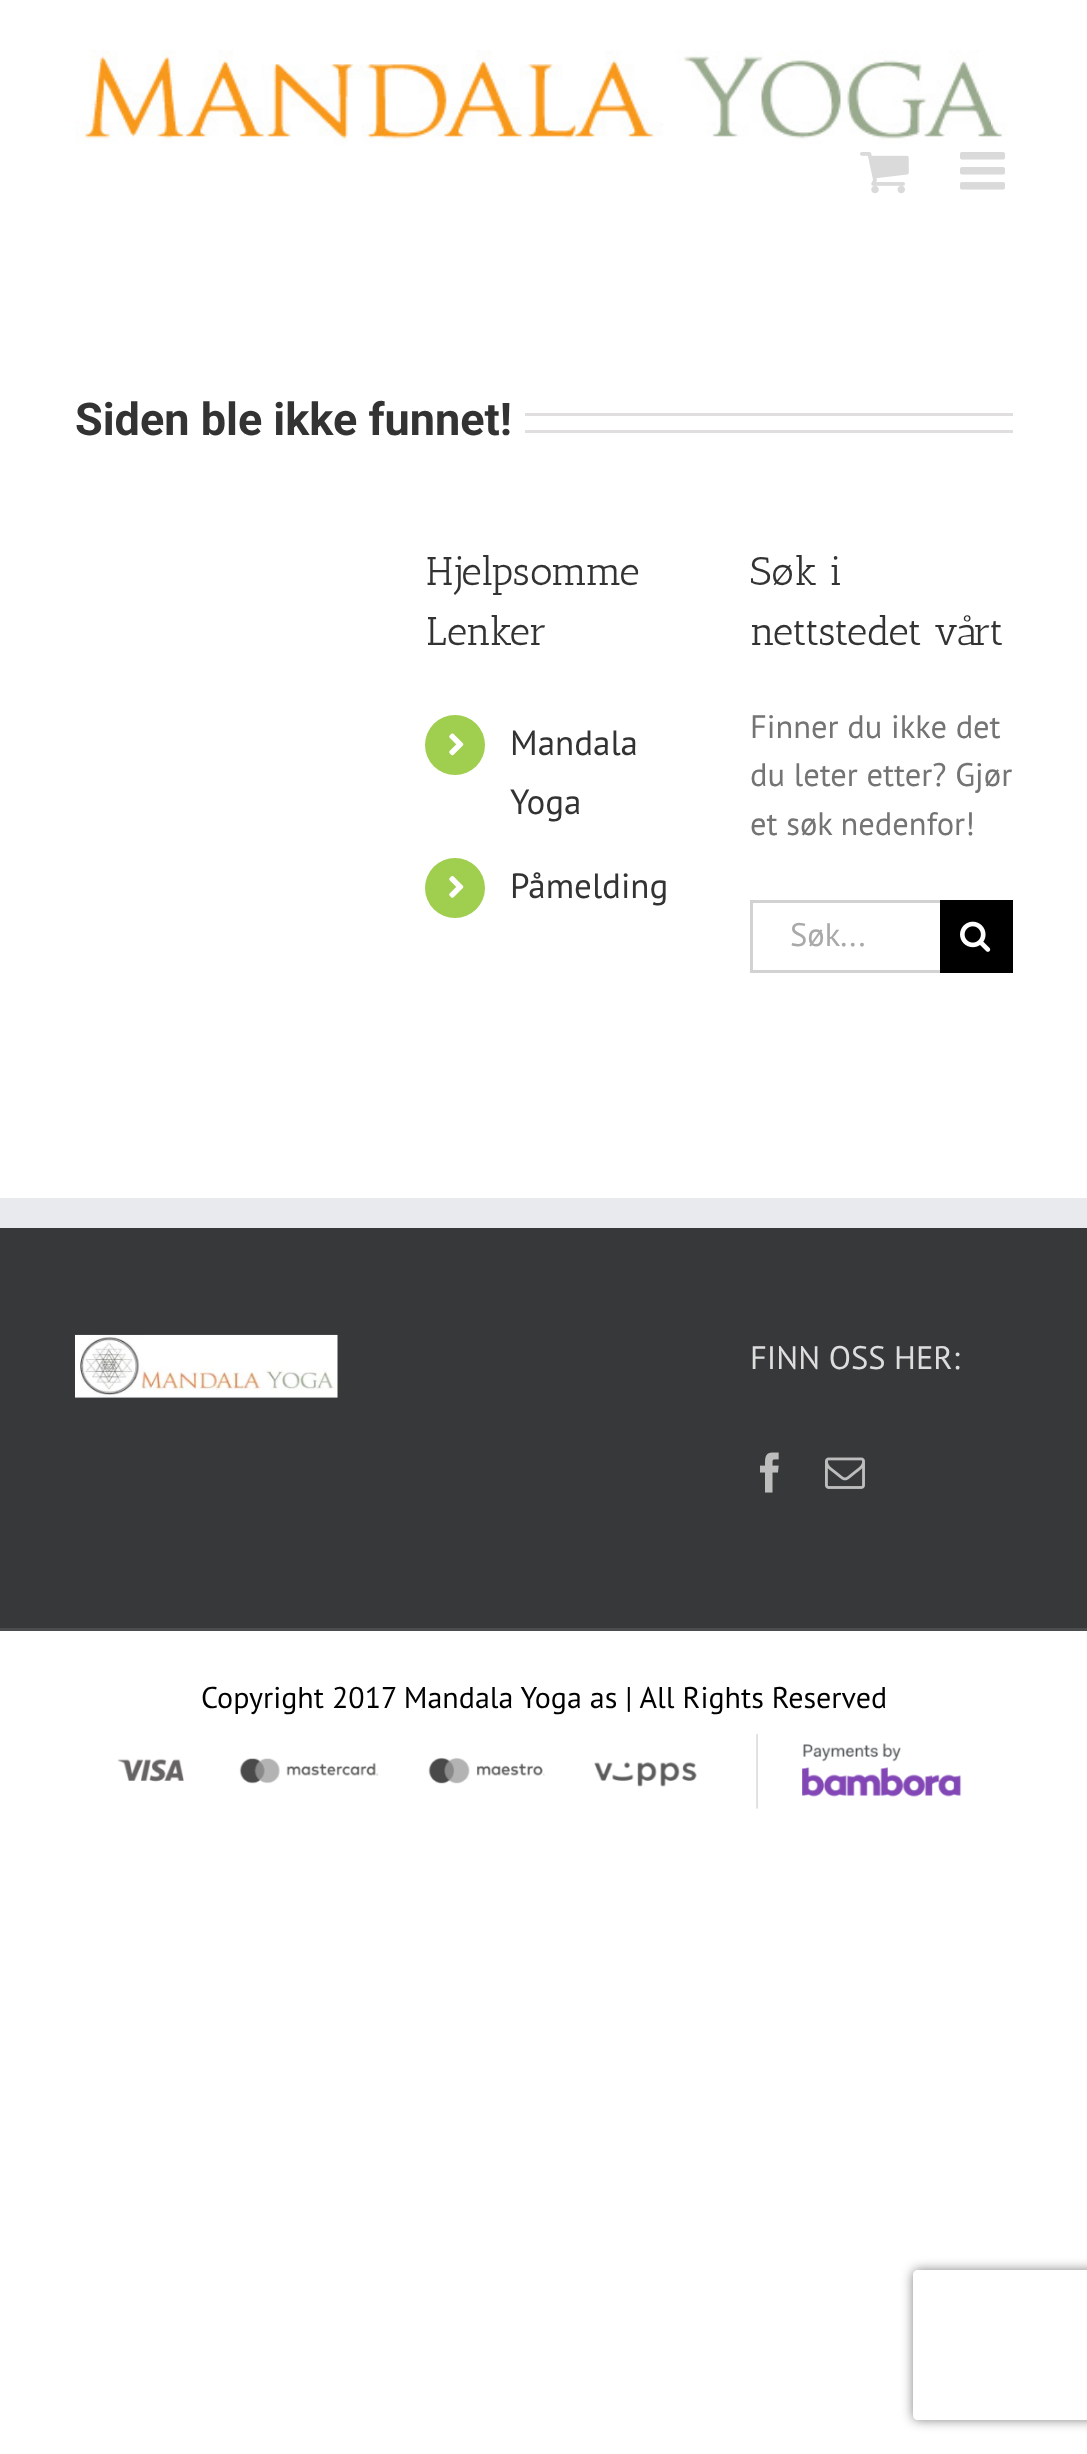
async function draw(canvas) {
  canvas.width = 1087
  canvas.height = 2454
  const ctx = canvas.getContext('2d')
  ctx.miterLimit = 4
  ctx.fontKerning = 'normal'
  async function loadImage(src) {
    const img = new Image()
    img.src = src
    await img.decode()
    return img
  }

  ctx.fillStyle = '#fff'
  ctx.fillRect(0, 0, 1087, 2454)
  ctx.drawImage(await loadImage('image0.png'), 75, 50, 932, 95)
  ctx.drawImage(await loadImage('image1.png'), 860, 152, 49, 42)
  ctx.drawImage(await loadImage('image2.png'), 960, 152, 45, 38)
  ctx.font = 'bold 45px Roboto'
  ctx.fillStyle = '#333'
  ctx.fillText('Siden ble ikke funnet!', 75, 435)
  ctx.fillStyle = '#e0dede'
  ctx.fillRect(525, 413, 488, 3)
  ctx.fillRect(525, 430, 488, 3)
  ctx.font = '40px Antic Slab'
  ctx.fillStyle = '#333'
  ctx.fillText('Hjelpsomme', 426, 585)
  ctx.fillText('Lenker', 426, 645)
  ctx.fillStyle = '#a0ce4e'
  ctx.beginPath()
  ctx.arc(455, 745, 30, 0, 2 * Math.PI)
  ctx.fill()
  ctx.drawImage(await loadImage('image3.png'), 449, 733, 15, 23)
  ctx.font = '35px PT Sans'
  ctx.fillStyle = '#333'
  ctx.fillText('Mandala', 510, 755)
  ctx.fillText('Yoga', 510, 814)
  ctx.fillStyle = '#a0ce4e'
  ctx.beginPath()
  ctx.arc(455, 888, 30, 0, 2 * Math.PI)
  ctx.fill()
  ctx.drawImage(await loadImage('image4.png'), 449, 876, 15, 22)
  ctx.fillStyle = '#333'
  ctx.fillText('Påmelding', 510, 898)
  ctx.font = '40px Antic Slab'
  ctx.fillText('Søk i', 750, 585)
  ctx.fillText('nettstedet vårt', 750, 645)
  ctx.font = '32.5px PT Sans'
  ctx.fillStyle = '#747474'
  ctx.fillText('Finner du ikke det', 750, 738)
  ctx.fillText('du leter etter? Gjør', 750, 786)
  ctx.fillText('et søk nedenfor!', 750, 835)
  ctx.fillStyle = '#d2d2d2'
  ctx.fillRect(750, 900, 190, 3)
  ctx.fillRect(750, 970, 190, 3)
  ctx.fillRect(750, 900, 3, 73)
  ctx.fillStyle = '#aaa9a9'
  ctx.fillText('Søk...', 790, 946)
  ctx.fillStyle = '#000'
  ctx.fillRect(940, 900, 73, 73)
  ctx.drawImage(await loadImage('image5.png'), 960, 921, 31, 31)
  ctx.fillStyle = '#363839'
  ctx.fillRect(0, 1228, 1087, 400)
  ctx.fillStyle = '#e9eaee'
  ctx.fillRect(0, 1198, 1087, 30)
  ctx.drawImage(await loadImage('image6.png'), 75, 1334, 263, 64)
  ctx.fillStyle = '#ddd'
  ctx.fillText('FINN OSS HER:', 750, 1369)
  ctx.drawImage(await loadImage('image7.png'), 760, 1452, 19, 41)
  ctx.drawImage(await loadImage('image8.png'), 825, 1457, 40, 32)
  ctx.fillStyle = '#4b4c4d'
  ctx.fillRect(0, 1628, 1087, 3)
  ctx.font = '30px PT Sans'
  ctx.fillStyle = '#000'
  ctx.fillText('Copyright 2017 Mandala Yoga as | All Rights Reserved', 201, 1708)
  ctx.drawImage(await loadImage('image9.png'), 117, 1734, 845, 75)
  ctx.save()
  ctx.beginPath()
  ctx.moveTo(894, 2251)
  ctx.lineTo(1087, 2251)
  ctx.lineTo(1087, 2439)
  ctx.lineTo(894, 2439)
  ctx.closePath()
  ctx.moveTo(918, 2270)
  ctx.lineTo(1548, 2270)
  ctx.bezierCurveTo(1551, 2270, 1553, 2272, 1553, 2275)
  ctx.lineTo(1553, 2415)
  ctx.bezierCurveTo(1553, 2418, 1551, 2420, 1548, 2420)
  ctx.lineTo(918, 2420)
  ctx.bezierCurveTo(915, 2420, 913, 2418, 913, 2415)
  ctx.lineTo(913, 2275)
  ctx.bezierCurveTo(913, 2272, 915, 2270, 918, 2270)
  ctx.closePath()
  ctx.clip('evenodd')
  ctx.fillStyle = '#808080'
  ctx.filter = 'blur(6px)'
  ctx.beginPath()
  ctx.roundRect(913, 2270, 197, 150, 5)
  ctx.fill()
  ctx.filter = 'none'
  ctx.restore()
}

draw(document.querySelector('canvas'))
